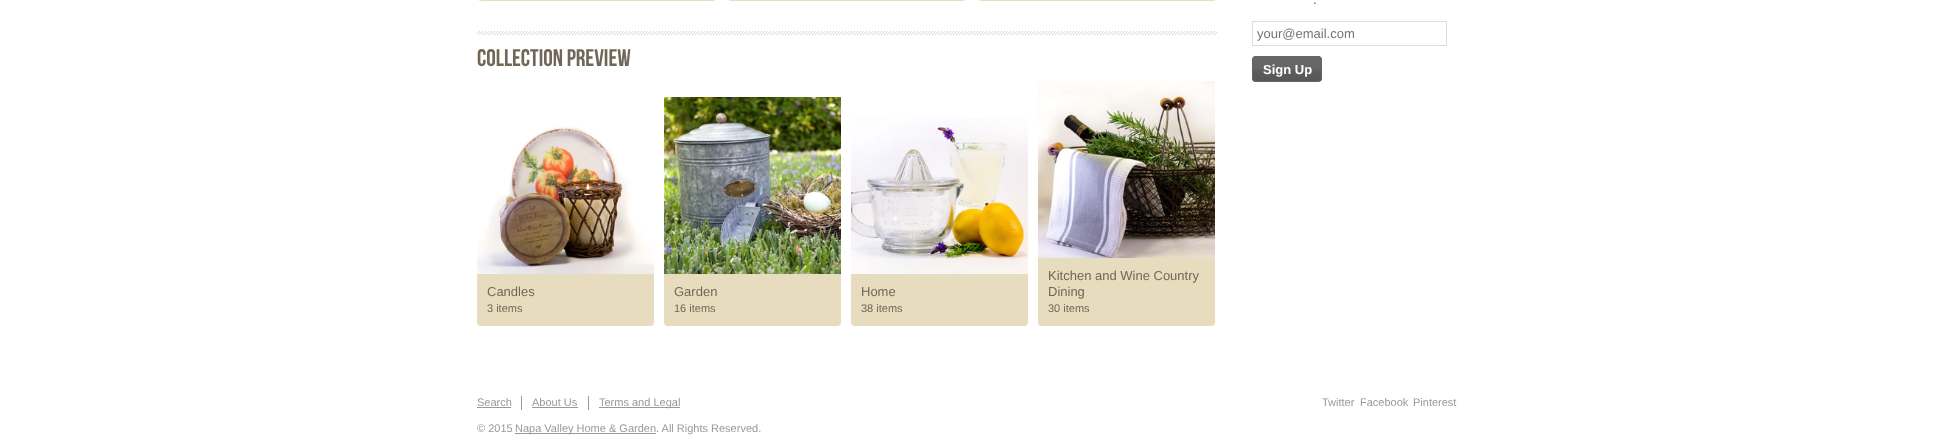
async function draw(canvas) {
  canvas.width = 1933
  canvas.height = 442
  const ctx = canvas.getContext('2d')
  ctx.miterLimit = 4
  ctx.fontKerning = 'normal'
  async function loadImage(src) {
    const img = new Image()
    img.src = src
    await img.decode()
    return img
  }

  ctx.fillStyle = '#fff'
  ctx.fillRect(0, 0, 1933, 442)
  ctx.font = '13px Liberation Sans'
  ctx.fillStyle = '#666'
  ctx.fillText('.', 1313, 4)
  ctx.strokeStyle = '#ddd'
  ctx.strokeRect(1252.5, 21.5, 194, 24)
  ctx.fillStyle = '#757575'
  ctx.fillText('your@email.com', 1257, 38)
  ctx.fillStyle = '#666'
  ctx.beginPath()
  ctx.roundRect(1252, 56, 70, 26, 4)
  ctx.fill()
  ctx.drawImage(await loadImage('image0.png'), 1252, 69, 70, 12)
  ctx.beginPath()
  ctx.roundRect(1252.5, 56.5, 69, 25, 3.5)
  ctx.strokeStyle = '#666'
  ctx.stroke()
  ctx.font = 'bold 13px Liberation Sans'
  ctx.fillStyle = '#fff'
  ctx.fillText('Sign Up', 1263, 74)
  ctx.fillStyle = '#e7ddbe'
  ctx.beginPath()
  ctx.moveTo(477, -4)
  ctx.lineTo(717, -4)
  ctx.lineTo(717, -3)
  ctx.bezierCurveTo(717, -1, 715, 1, 713, 1)
  ctx.lineTo(481, 1)
  ctx.bezierCurveTo(479, 1, 477, -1, 477, -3)
  ctx.closePath()
  ctx.fill()
  ctx.beginPath()
  ctx.moveTo(727, -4)
  ctx.lineTo(967, -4)
  ctx.lineTo(967, -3)
  ctx.bezierCurveTo(967, -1, 965, 1, 963, 1)
  ctx.lineTo(731, 1)
  ctx.bezierCurveTo(729, 1, 727, -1, 727, -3)
  ctx.closePath()
  ctx.fill()
  ctx.beginPath()
  ctx.moveTo(977, -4)
  ctx.lineTo(1217, -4)
  ctx.lineTo(1217, -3)
  ctx.bezierCurveTo(1217, -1, 1215, 1, 1213, 1)
  ctx.lineTo(981, 1)
  ctx.bezierCurveTo(979, 1, 977, -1, 977, -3)
  ctx.closePath()
  ctx.fill()
  ctx.drawImage(await loadImage('image1.png'), 477, 31, 740, 4)
  ctx.font = '24px Bebas Neue'
  ctx.fillStyle = '#726659'
  ctx.fillText('Collection Preview', 477, 66)
  ctx.drawImage(await loadImage('image2.png'), 477, 126, 177, 148)
  ctx.fillStyle = '#e7ddbe'
  ctx.beginPath()
  ctx.roundRect(477, 274, 177, 52, [0, 0, 4, 4])
  ctx.fill()
  ctx.font = '13px Liberation Sans'
  ctx.fillStyle = '#726659'
  ctx.fillText('Candles', 487, 296)
  ctx.font = '11px Liberation Sans'
  ctx.fillText('3 items', 487, 312)
  ctx.drawImage(await loadImage('image3.png'), 664, 97, 177, 177)
  ctx.fillStyle = '#e7ddbe'
  ctx.beginPath()
  ctx.roundRect(664, 274, 177, 52, [0, 0, 4, 4])
  ctx.fill()
  ctx.font = '13px Liberation Sans'
  ctx.fillStyle = '#726659'
  ctx.fillText('Garden', 674, 296)
  ctx.font = '11px Liberation Sans'
  ctx.fillText('16 items', 674, 312)
  ctx.drawImage(await loadImage('image4.png'), 851, 117, 177, 157)
  ctx.fillStyle = '#e7ddbe'
  ctx.beginPath()
  ctx.roundRect(851, 274, 177, 52, [0, 0, 4, 4])
  ctx.fill()
  ctx.font = '13px Liberation Sans'
  ctx.fillStyle = '#726659'
  ctx.fillText('Home', 861, 296)
  ctx.font = '11px Liberation Sans'
  ctx.fillText('38 items', 861, 312)
  ctx.drawImage(await loadImage('image5.png'), 1038, 81, 177, 177)
  ctx.fillStyle = '#e7ddbe'
  ctx.beginPath()
  ctx.roundRect(1038, 258, 177, 68, [0, 0, 4, 4])
  ctx.fill()
  ctx.font = '13px Liberation Sans'
  ctx.fillStyle = '#726659'
  ctx.fillText('Kitchen and Wine Country', 1048, 280)
  ctx.fillText('Dining', 1048, 296)
  ctx.font = '11px Liberation Sans'
  ctx.fillText('30 items', 1048, 312)
  ctx.fillStyle = '#999'
  ctx.fillText('Search', 477, 406)
  ctx.fillRect(477, 407, 34, 1)
  ctx.fillRect(521, 396, 1, 14)
  ctx.fillText('About Us', 532, 406)
  ctx.fillRect(532, 407, 46, 1)
  ctx.fillRect(588, 396, 1, 14)
  ctx.fillRect(599, 407, 81, 1)
  ctx.fillText('Terms and Legal', 599, 406)
  ctx.save()
  ctx.beginPath()
  ctx.rect(477, 381, 980, 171)
  ctx.clip()
  ctx.fillText('© 2015', 477, 432)
  ctx.restore()
  ctx.fillRect(515, 433, 141, 1)
  ctx.fillText('Napa Valley Home & Garden. All Rights Reserved.', 515, 432)
  ctx.fillText('Twitter', 1322, 406)
  ctx.fillText('Facebook', 1360, 406)
  ctx.fillText('Pinterest', 1413, 406)
}

draw(document.querySelector('canvas'))
